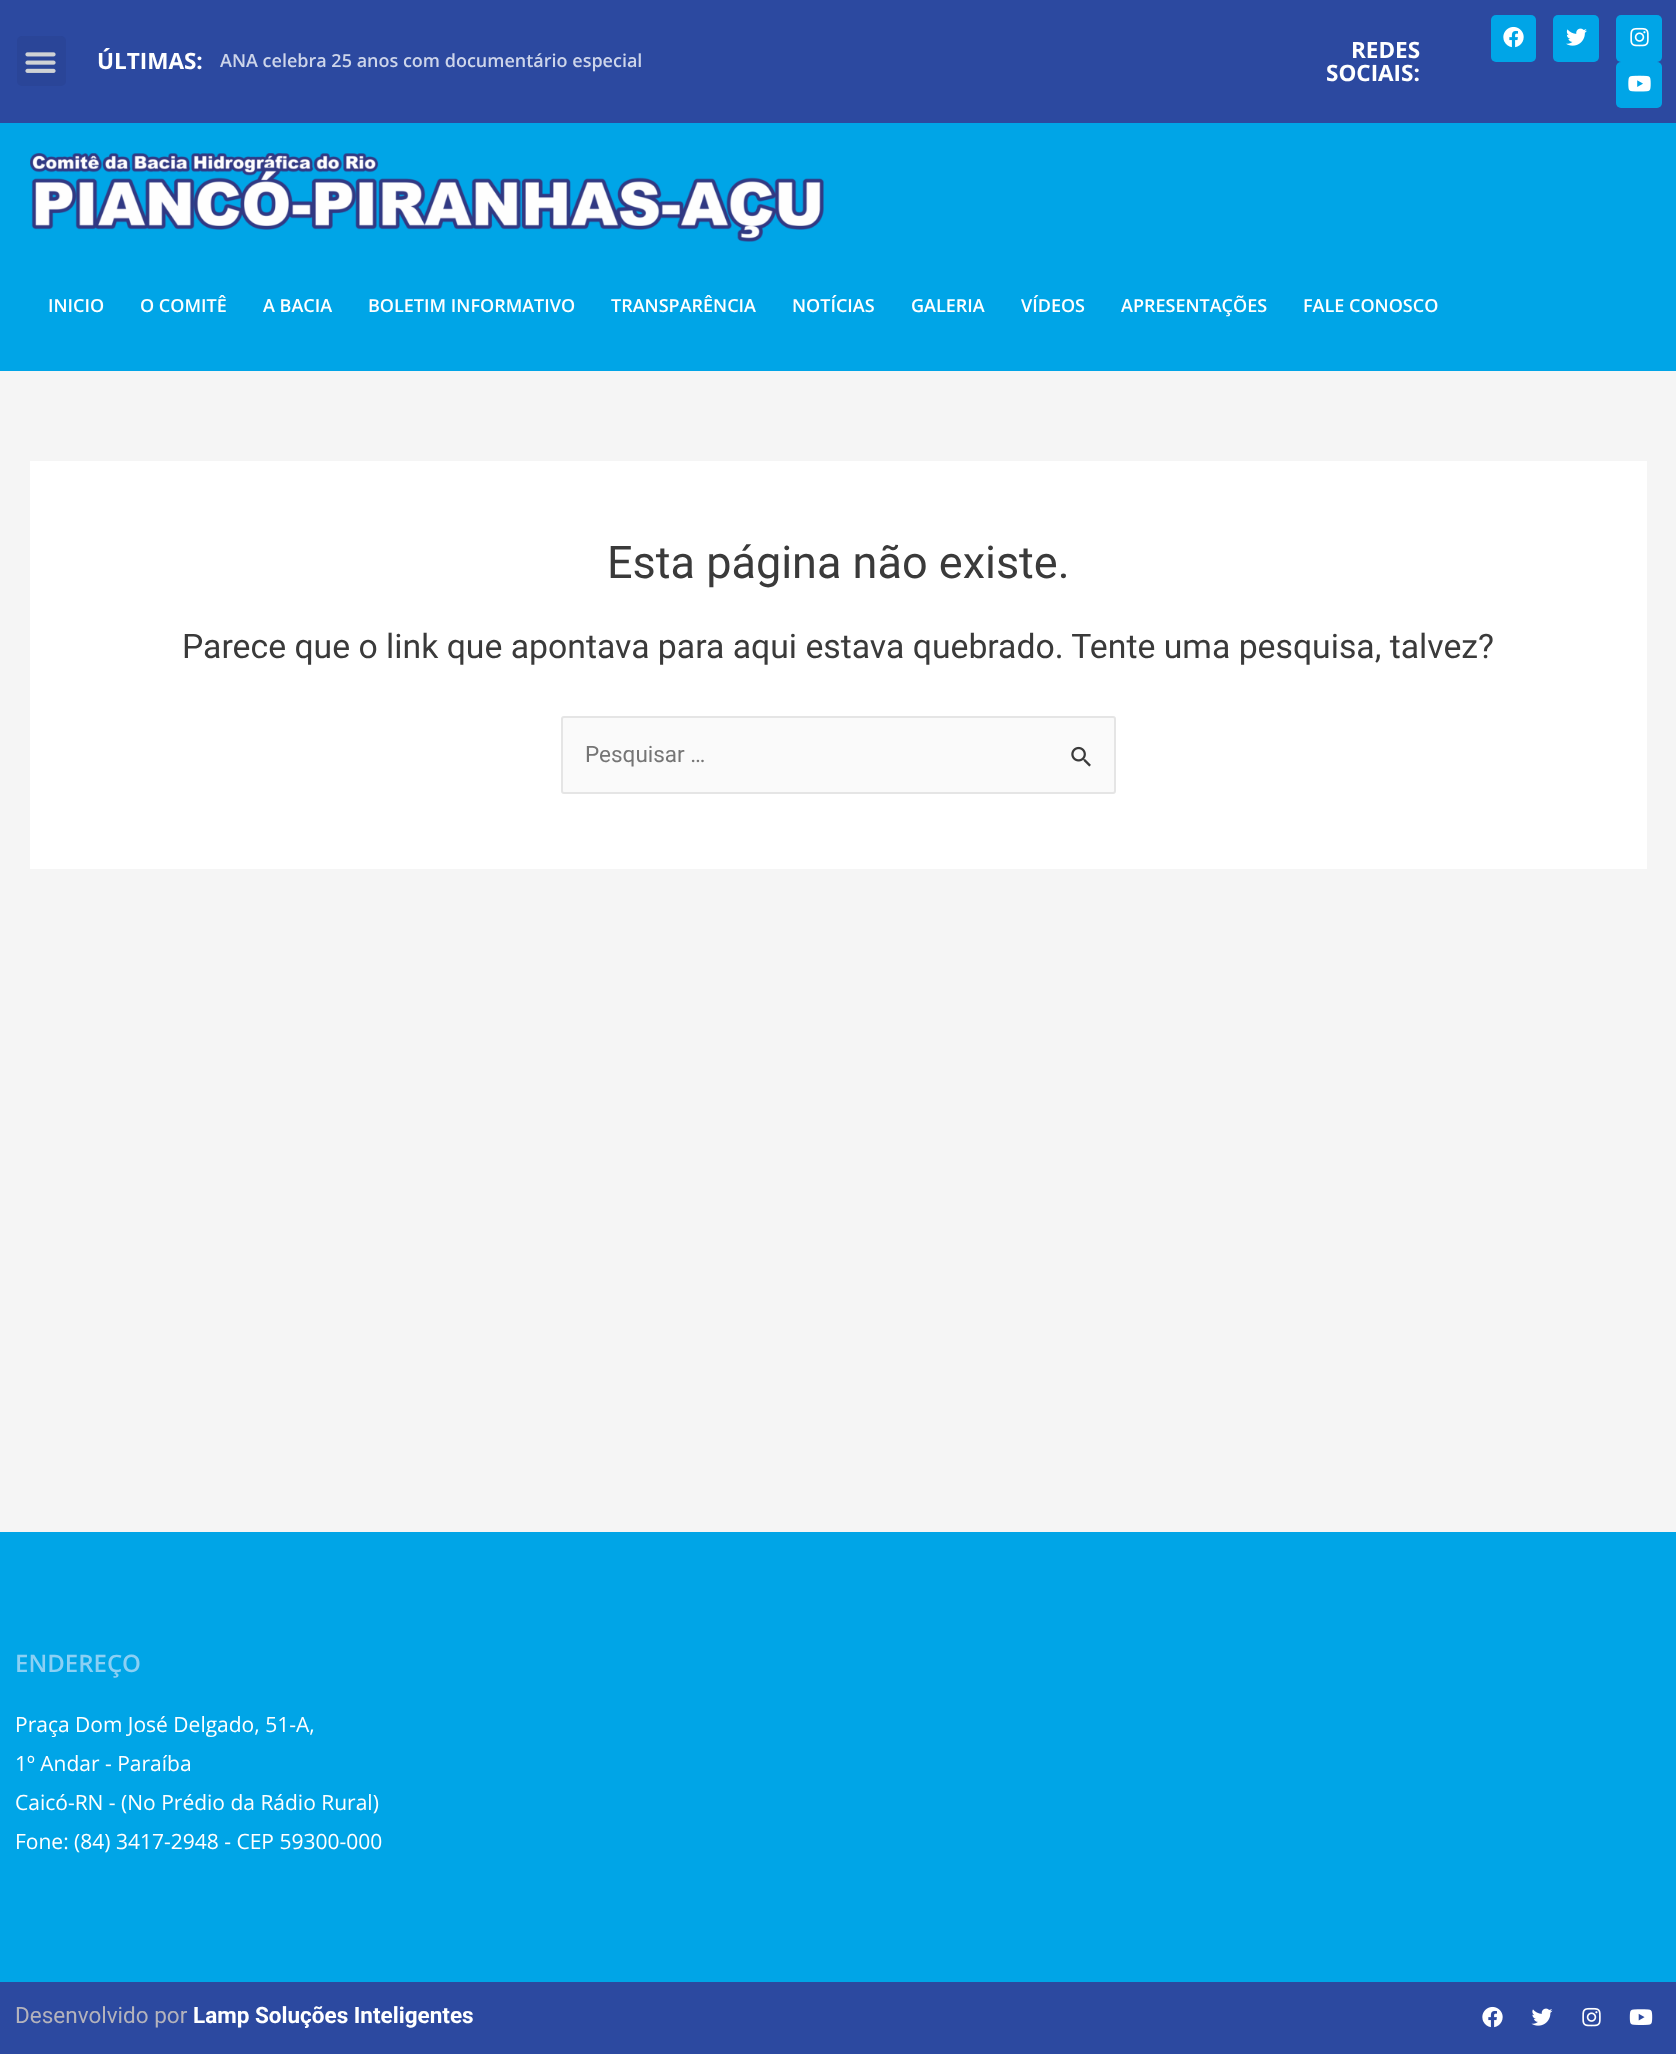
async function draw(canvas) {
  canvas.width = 1676
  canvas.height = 2054
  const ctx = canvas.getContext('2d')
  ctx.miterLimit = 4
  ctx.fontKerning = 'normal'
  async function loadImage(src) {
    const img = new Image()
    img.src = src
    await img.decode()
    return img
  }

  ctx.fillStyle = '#f5f5f5'
  ctx.fillRect(0, 0, 1676, 2054)
  ctx.fillStyle = '#2c49a0'
  ctx.fillRect(0, 0, 1676, 123)
  ctx.fillStyle = '#2a4598'
  ctx.beginPath()
  ctx.roundRect(17, 36, 49, 50, 5)
  ctx.fill()
  ctx.drawImage(await loadImage('image0.png'), 25, 52, 31, 21)
  ctx.font = 'bold 22.5px Open Sans'
  ctx.fillStyle = '#fff'
  ctx.fillText('ÚLTIMAS:', 97, 69)
  ctx.font = '600 18px Open Sans'
  ctx.fillStyle = '#cdd5ea'
  ctx.fillText('ANA celebra 25 anos com documentário especial', 220, 67)
  ctx.font = 'bold 22.5px Open Sans'
  ctx.fillStyle = '#fff'
  ctx.fillText('REDES', 1351, 58)
  ctx.fillText('SOCIAIS:', 1326, 81)
  ctx.fillStyle = '#00a5e7'
  ctx.beginPath()
  ctx.roundRect(1491, 15, 45, 47, 5)
  ctx.fill()
  ctx.drawImage(await loadImage('image1.png'), 1503, 26, 21, 22)
  ctx.beginPath()
  ctx.roundRect(1553, 15, 46, 47, 5)
  ctx.fill()
  ctx.drawImage(await loadImage('image2.png'), 1566, 28, 21, 18)
  ctx.beginPath()
  ctx.roundRect(1616, 15, 46, 47, 5)
  ctx.fill()
  ctx.drawImage(await loadImage('image3.png'), 1630, 27, 19, 20)
  ctx.beginPath()
  ctx.roundRect(1616, 62, 46, 46, 5)
  ctx.fill()
  ctx.drawImage(await loadImage('image4.png'), 1628, 75, 23, 17)
  ctx.fillRect(0, 123, 1676, 248)
  ctx.drawImage(await loadImage('image5.png'), 30, 153, 794, 89)
  ctx.font = '600 18px Open Sans'
  ctx.fillStyle = '#fff'
  ctx.fillText('INICIO', 48, 312)
  ctx.fillText('O COMITÊ', 140, 312)
  ctx.fillText('A BACIA', 263, 312)
  ctx.fillText('BOLETIM INFORMATIVO', 368, 312)
  ctx.fillText('TRANSPARÊNCIA', 611, 312)
  ctx.fillText('NOTÍCIAS', 792, 312)
  ctx.fillText('GALERIA', 911, 312)
  ctx.fillText('VÍDEOS', 1021, 312)
  ctx.fillText('APRESENTAÇÕES', 1121, 312)
  ctx.fillText('FALE CONOSCO', 1303, 312)
  ctx.fillRect(30, 461, 1617, 408)
  ctx.font = '45px Roboto'
  ctx.fillStyle = '#3a3a3a'
  ctx.fillText('Esta página não existe.', 607, 578)
  ctx.font = '33.75px Roboto'
  ctx.fillText('Parece que o link que apontava para aqui estava quebrado. Tente uma pesquisa, talvez?', 182, 658)
  ctx.fillStyle = '#fafafa'
  ctx.beginPath()
  ctx.roundRect(562, 717, 553, 76, 2)
  ctx.fill()
  ctx.strokeStyle = '#e5e5e5'
  ctx.lineWidth = 2
  ctx.stroke()
  ctx.font = '22.5px Roboto'
  ctx.fillStyle = '#757575'
  ctx.fillText('Pesquisar …', 585, 762)
  ctx.drawImage(await loadImage('image6.png'), 1071, 746, 20, 21)
  ctx.fillStyle = '#00a5e7'
  ctx.fillRect(0, 1532, 1676, 450)
  ctx.font = '600 24px Open Sans'
  ctx.fillStyle = '#8bd0f4'
  ctx.fillText('ENDEREÇO', 15, 1672)
  ctx.font = '21px Open Sans'
  ctx.fillStyle = '#fff'
  ctx.fillText('Praça Dom José Delgado, 51-A,', 15, 1732)
  ctx.fillText('1º Andar - Paraíba', 15, 1771)
  ctx.fillText('Caicó-RN - (No Prédio da Rádio Rural)', 15, 1810)
  ctx.fillText('Fone: (84) 3417-2948 - CEP 59300-000', 15, 1849)
  ctx.fillStyle = '#2c49a0'
  ctx.fillRect(0, 1982, 1676, 72)
  ctx.font = '22.5px Roboto'
  ctx.fillStyle = '#b4b3bc'
  ctx.fillText('Desenvolvido por', 15, 2023)
  ctx.font = 'bold 22.5px Roboto'
  ctx.fillStyle = '#fff'
  ctx.fillText('Lamp Soluções Inteligentes', 193, 2023)
  ctx.drawImage(await loadImage('image7.png'), 1482, 2006, 21, 22)
  ctx.drawImage(await loadImage('image8.png'), 1531, 2008, 22, 18)
  ctx.drawImage(await loadImage('image9.png'), 1582, 2007, 19, 20)
  ctx.drawImage(await loadImage('image10.png'), 1629, 2009, 24, 16)
}

draw(document.querySelector('canvas'))
